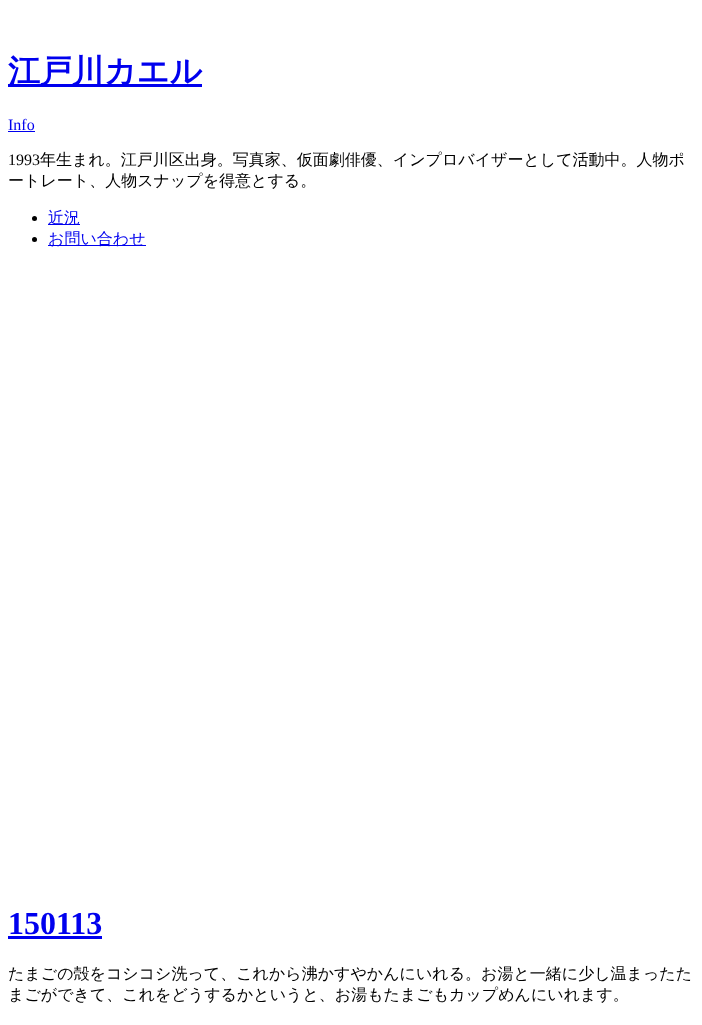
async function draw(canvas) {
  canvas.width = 702
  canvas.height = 1025
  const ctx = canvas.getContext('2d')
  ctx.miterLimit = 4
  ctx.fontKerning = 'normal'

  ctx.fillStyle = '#fff'
  ctx.fillRect(0, 0, 702, 1025)
  ctx.fillStyle = '#00e'
  ctx.fillRect(8, 84, 194, 3)
  ctx.font = 'bold 32px WenQuanYi Zen Hei'
  ctx.fillText('江戸川カエル', 8, 82)
  ctx.font = '16px Liberation Serif'
  ctx.fillText('Info', 8, 130)
  ctx.fillRect(8, 131, 27, 1)
  ctx.fillStyle = '#000'
  ctx.fillText('1993', 8, 165)
  ctx.font = '500 16px WenQuanYi Zen Hei'
  ctx.fillText('年生まれ。江戸川区出身。写真家、仮面劇俳優、インプロバイザーとして活動中。人物ポ', 40, 165)
  ctx.fillText('ートレート、人物スナップを得意とする。', 8, 186)
  ctx.beginPath()
  ctx.arc(34.5, 218.5, 2.5, 0, 2 * Math.PI)
  ctx.fill()
  ctx.fillStyle = '#00e'
  ctx.fillRect(48, 224, 32, 1)
  ctx.fillText('近況', 48, 223)
  ctx.fillStyle = '#000'
  ctx.beginPath()
  ctx.arc(34.5, 239.5, 2.5, 0, 2 * Math.PI)
  ctx.fill()
  ctx.fillStyle = '#00e'
  ctx.fillRect(48, 245, 98, 1)
  ctx.fillText('お問い合わせ', 48, 244)
  ctx.font = 'bold 32px Liberation Serif'
  ctx.fillText('150113', 8, 934)
  ctx.fillRect(8, 936, 94, 3)
  ctx.font = '500 16px WenQuanYi Zen Hei'
  ctx.fillStyle = '#000'
  ctx.fillText('たまごの殻をコシコシ洗って、これから沸かすやかんにいれる。お湯と一緒に少し温まったた', 8, 979)
  ctx.fillText('まごができて、これをどうするかというと、お湯もたまごもカップめんにいれます。', 8, 1000)
}

draw(document.querySelector('canvas'))
